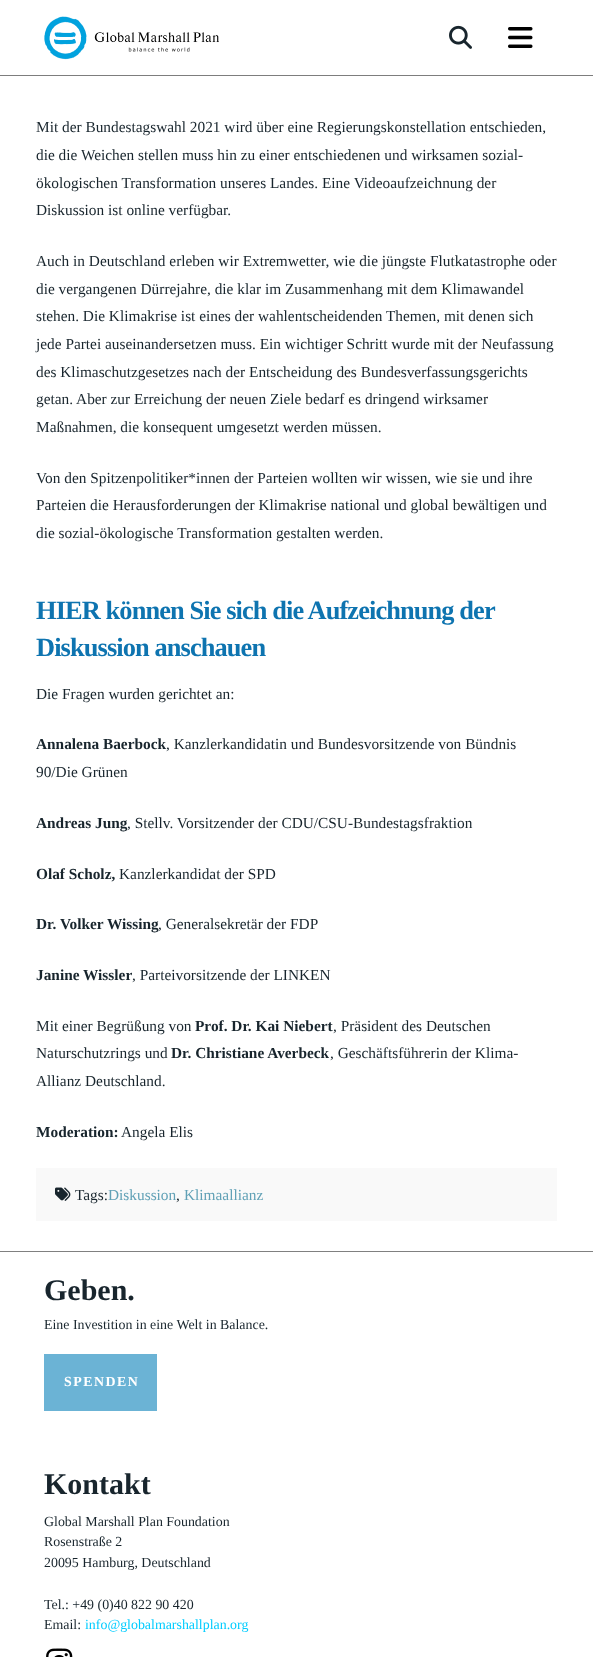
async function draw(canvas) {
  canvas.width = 593
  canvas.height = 1657
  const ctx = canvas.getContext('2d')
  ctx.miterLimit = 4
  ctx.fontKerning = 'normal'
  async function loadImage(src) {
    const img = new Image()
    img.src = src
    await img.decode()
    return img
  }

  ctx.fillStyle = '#fff'
  ctx.fillRect(0, 0, 593, 1657)
  ctx.fillStyle = '#7d7d7d'
  ctx.fillRect(0, 75, 593, 1)
  ctx.drawImage(await loadImage('image0.png'), 44, 16, 175, 44)
  ctx.drawImage(await loadImage('image1.png'), 449, 25, 23, 24)
  ctx.drawImage(await loadImage('image2.png'), 508, 27, 25, 21)
  ctx.font = '15.35px Liberation Serif'
  ctx.fillStyle = '#18252d'
  ctx.fillText('Mit der Bundestagswahl 2021 wird über eine Regierungskonstellation entschieden,', 36, 132)
  ctx.fillText('die die Weichen stellen muss hin zu einer entschiedenen und wirksamen sozial-', 36, 160)
  ctx.fillText('ökologischen Transformation unseres Landes. Eine Videoaufzeichnung der', 36, 188)
  ctx.fillText('Diskussion ist online verfügbar.', 36, 215)
  ctx.fillText('Auch in Deutschland erleben wir Extremwetter, wie die jüngste Flutkatastrophe oder', 36, 266)
  ctx.fillText('die vergangenen Dürrejahre, die klar im Zusammenhang mit dem Klimawandel', 36, 294)
  ctx.fillText('stehen. Die Klimakrise ist eines der wahlentscheidenden Themen, mit denen sich', 36, 321)
  ctx.fillText('jede Partei auseinandersetzen muss. Ein wichtiger Schritt wurde mit der Neufassung', 36, 349)
  ctx.fillText('des Klimaschutzgesetzes nach der Entscheidung des Bundesverfassungsgerichts', 36, 377)
  ctx.fillText('getan. Aber zur Erreichung der neuen Ziele bedarf es dringend wirksamer', 36, 404)
  ctx.fillText('Maßnahmen, die konsequent umgesetzt werden müssen.', 36, 432)
  ctx.fillText('Von den Spitzenpolitiker*innen der Parteien wollten wir wissen, wie sie und ihre', 36, 483)
  ctx.fillText('Parteien die Herausforderungen der Klimakrise national und global bewältigen und', 36, 510)
  ctx.fillText('die sozial-ökologische Transformation gestalten werden.', 36, 538)
  ctx.letterSpacing = '-0.9px'
  ctx.font = 'bold 26.4px Liberation Serif'
  ctx.fillStyle = '#0e74b0'
  ctx.fillText('HIER können Sie sich die Aufzeichnung der', 36, 619)
  ctx.fillText('Diskussion anschauen', 36, 656)
  ctx.letterSpacing = '0px'
  ctx.font = '15.35px Liberation Serif'
  ctx.fillStyle = '#18252d'
  ctx.fillText('Die Fragen wurden gerichtet an:', 36, 699)
  ctx.font = 'bold 15.35px Liberation Serif'
  ctx.fillText('Annalena Baerbock', 36, 749)
  ctx.font = '15.35px Liberation Serif'
  ctx.fillText(', Kanzlerkandidatin und Bundesvorsitzende von Bündnis', 166, 749)
  ctx.fillText('90/Die Grünen', 36, 777)
  ctx.font = 'bold 15.35px Liberation Serif'
  ctx.fillText('Andreas Jung', 36, 828)
  ctx.font = '15.35px Liberation Serif'
  ctx.fillText(', Stellv. Vorsitzender der CDU/CSU-Bundestagsfraktion', 127, 828)
  ctx.font = 'bold 15.35px Liberation Serif'
  ctx.fillText('Olaf Scholz,', 36, 879)
  ctx.font = '15.35px Liberation Serif'
  ctx.fillText('Kanzlerkandidat der SPD', 119, 879)
  ctx.font = 'bold 15.35px Liberation Serif'
  ctx.fillText('Dr. Volker Wissing', 36, 929)
  ctx.font = '15.35px Liberation Serif'
  ctx.fillText(', Generalsekretär der FDP', 158, 929)
  ctx.font = 'bold 15.35px Liberation Serif'
  ctx.fillText('Janine Wissler', 36, 980)
  ctx.font = '15.35px Liberation Serif'
  ctx.fillText(', Parteivorsitzende der LINKEN', 132, 980)
  ctx.fillText('Mit einer Begrüßung von', 36, 1031)
  ctx.font = 'bold 15.35px Liberation Serif'
  ctx.fillText('Prof. Dr. Kai Niebert', 195, 1031)
  ctx.font = '15.35px Liberation Serif'
  ctx.fillText(', Präsident des Deutschen', 333, 1031)
  ctx.fillText('Naturschutzrings und', 36, 1058)
  ctx.font = 'bold 15.35px Liberation Serif'
  ctx.fillText('Dr. Christiane Averbeck', 171, 1058)
  ctx.font = '15.35px Liberation Serif'
  ctx.fillText(', Geschäftsführerin der Klima-', 330, 1058)
  ctx.fillText('Allianz Deutschland.', 36, 1086)
  ctx.font = 'bold 15.35px Liberation Serif'
  ctx.fillText('Moderation:', 36, 1137)
  ctx.font = '15.35px Liberation Serif'
  ctx.fillText('Angela Elis', 121, 1137)
  ctx.fillStyle = '#f9f9f9'
  ctx.fillRect(36, 1168, 521, 53)
  ctx.drawImage(await loadImage('image3.png'), 55, 1187, 16, 14)
  ctx.fillStyle = '#18252d'
  ctx.fillText('Tags:', 75, 1200)
  ctx.fillStyle = '#61a1b6'
  ctx.fillText('Diskussion', 108, 1200)
  ctx.fillStyle = '#18252d'
  ctx.fillText(',', 176, 1200)
  ctx.fillStyle = '#61a1b6'
  ctx.fillText('Klimaallianz', 184, 1200)
  ctx.fillStyle = '#808080'
  ctx.fillRect(0, 1251, 593, 1)
  ctx.font = 'bold 30px Liberation Serif'
  ctx.fillStyle = '#18252d'
  ctx.fillText('Geben.', 44, 1300)
  ctx.font = '13.9px Liberation Serif'
  ctx.fillText('Eine Investition in eine Welt in Balance.', 44, 1329)
  ctx.fillStyle = '#6bb3d5'
  ctx.fillRect(44, 1354, 113, 57)
  ctx.letterSpacing = '1.5px'
  ctx.font = 'bold 13.9px Liberation Serif'
  ctx.fillStyle = '#fff'
  ctx.fillText('SPENDEN', 64, 1386)
  ctx.letterSpacing = '0px'
  ctx.font = 'bold 30px Liberation Serif'
  ctx.fillStyle = '#18252d'
  ctx.fillText('Kontakt', 44, 1494)
  ctx.font = '13.9px Liberation Serif'
  ctx.fillText('Global Marshall Plan Foundation', 44, 1526)
  ctx.fillText('Rosenstraße 2', 44, 1546)
  ctx.fillText('20095 Hamburg, Deutschland', 44, 1567)
  ctx.fillText('Tel.: +49 (0)40 822 90 420', 44, 1609)
  ctx.fillText('Email:', 44, 1629)
  ctx.fillStyle = '#0cf'
  ctx.fillText('info@globalmarshallplan.org', 85, 1629)
  ctx.drawImage(await loadImage('image4.png'), 46, 1648, 27, 9)
}

draw(document.querySelector('canvas'))
